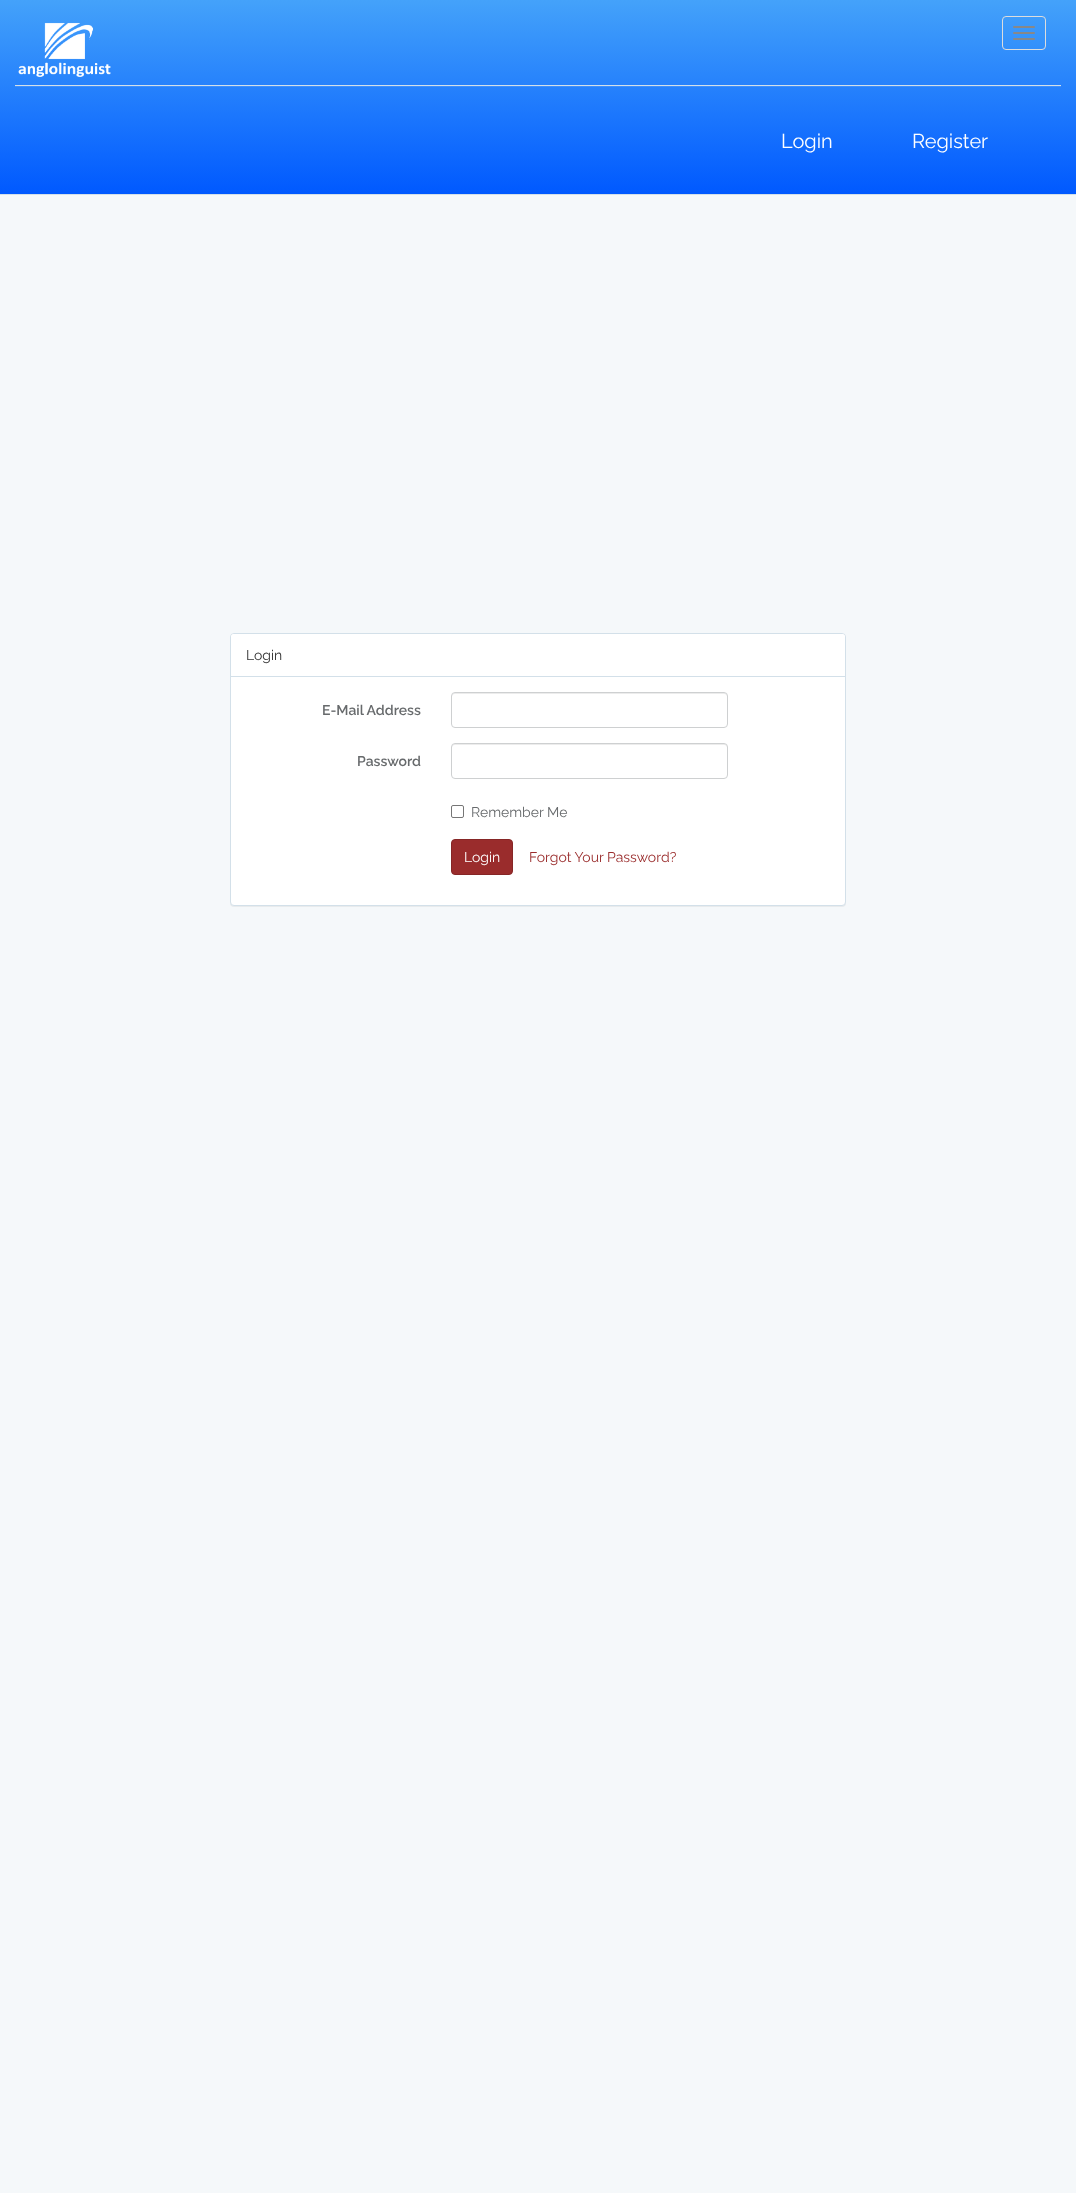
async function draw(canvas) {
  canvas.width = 1076
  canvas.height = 2193
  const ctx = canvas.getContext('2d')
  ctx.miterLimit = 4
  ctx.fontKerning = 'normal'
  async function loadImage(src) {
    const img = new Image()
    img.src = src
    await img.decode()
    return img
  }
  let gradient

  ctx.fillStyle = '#f5f8fa'
  ctx.fillRect(0, 0, 1076, 2193)
  gradient = ctx.createLinearGradient(538, 0, 538, 194)
  gradient.addColorStop(0, '#44a2fa')
  gradient.addColorStop(1, '#0059ff')
  ctx.fillStyle = gradient
  ctx.fillRect(0, 0, 1076, 194)
  ctx.fillStyle = '#d3e0e9'
  ctx.fillRect(0, 194, 1076, 1)
  ctx.drawImage(await loadImage('image0.png'), 18, 22, 93, 55)
  ctx.beginPath()
  ctx.roundRect(1002.5, 16.5, 43, 33, 3.5)
  ctx.strokeStyle = '#ddd'
  ctx.stroke()
  ctx.fillStyle = '#888'
  ctx.beginPath()
  ctx.roundRect(1013, 26, 22, 2, 1)
  ctx.fill()
  ctx.beginPath()
  ctx.roundRect(1013, 32, 22, 2, 1)
  ctx.fill()
  ctx.beginPath()
  ctx.roundRect(1013, 38, 22, 2, 1)
  ctx.fill()
  ctx.fillStyle = '#3c8efc'
  ctx.fillRect(15, 86, 1046, 1)
  ctx.fillStyle = '#d3e0e9'
  ctx.fillRect(15, 85, 1046, 1)
  ctx.font = '20px Raleway'
  ctx.fillStyle = '#fff'
  ctx.fillText('Login', 781, 148)
  ctx.fillText('Register', 912, 148)
  ctx.fillStyle = '#0000000d'
  ctx.filter = 'blur(0.5px)'
  ctx.beginPath()
  ctx.roundRect(230, 634, 616, 273, 4)
  ctx.fill()
  ctx.filter = 'none'
  ctx.fillStyle = '#fff'
  ctx.beginPath()
  ctx.roundRect(230.5, 633.5, 615, 272, 3.5)
  ctx.fill()
  ctx.strokeStyle = '#d3e0e9'
  ctx.stroke()
  ctx.beginPath()
  ctx.roundRect(231, 634, 614, 43, [3, 3, 0, 0])
  ctx.fill()
  ctx.fillStyle = '#d3e0e9'
  ctx.fillRect(231, 676, 614, 1)
  ctx.font = '14px Raleway'
  ctx.fillStyle = '#333'
  ctx.fillText('Login', 246, 660)
  ctx.font = '600 14px Raleway'
  ctx.fillStyle = '#676a6c'
  ctx.fillText('E-Mail Address', 322, 715)
  ctx.fillStyle = '#ececec'
  ctx.beginPath()
  ctx.moveTo(455, 694)
  ctx.lineTo(724, 694)
  ctx.bezierCurveTo(726, 694, 727, 695, 727, 697)
  ctx.lineTo(727, 696)
  ctx.bezierCurveTo(727, 694, 726, 693, 724, 693)
  ctx.lineTo(455, 693)
  ctx.bezierCurveTo(453, 693, 452, 694, 452, 696)
  ctx.lineTo(452, 697)
  ctx.bezierCurveTo(452, 695, 453, 694, 455, 694)
  ctx.closePath()
  ctx.fill()
  ctx.beginPath()
  ctx.roundRect(451.5, 692.5, 276, 35, 3.5)
  ctx.strokeStyle = '#ced0d1'
  ctx.stroke()
  ctx.fillStyle = '#676a6c'
  ctx.fillText('Password', 357, 766)
  ctx.fillStyle = '#ececec'
  ctx.beginPath()
  ctx.moveTo(455, 745)
  ctx.lineTo(724, 745)
  ctx.bezierCurveTo(726, 745, 727, 746, 727, 748)
  ctx.lineTo(727, 747)
  ctx.bezierCurveTo(727, 745, 726, 744, 724, 744)
  ctx.lineTo(455, 744)
  ctx.bezierCurveTo(453, 744, 452, 745, 452, 747)
  ctx.lineTo(452, 748)
  ctx.bezierCurveTo(452, 746, 453, 745, 455, 745)
  ctx.closePath()
  ctx.fill()
  ctx.beginPath()
  ctx.roundRect(451.5, 743.5, 276, 35, 3.5)
  ctx.stroke()
  ctx.beginPath()
  ctx.roundRect(451.5, 805.5, 12, 12, 1.5)
  ctx.strokeStyle = '#767676'
  ctx.stroke()
  ctx.font = '14px Raleway'
  ctx.fillStyle = '#676a6c'
  ctx.fillText('Remember Me', 471, 817)
  ctx.fillStyle = '#9a2c2c'
  ctx.beginPath()
  ctx.roundRect(451.5, 839.5, 61, 35, 3.5)
  ctx.fill()
  ctx.strokeStyle = '#862626'
  ctx.stroke()
  ctx.fillStyle = '#fff'
  ctx.fillText('Login', 464, 862)
  ctx.fillStyle = '#9a2c2c'
  ctx.fillText('Forgot Your Password?', 529, 862)
}

draw(document.querySelector('canvas'))
